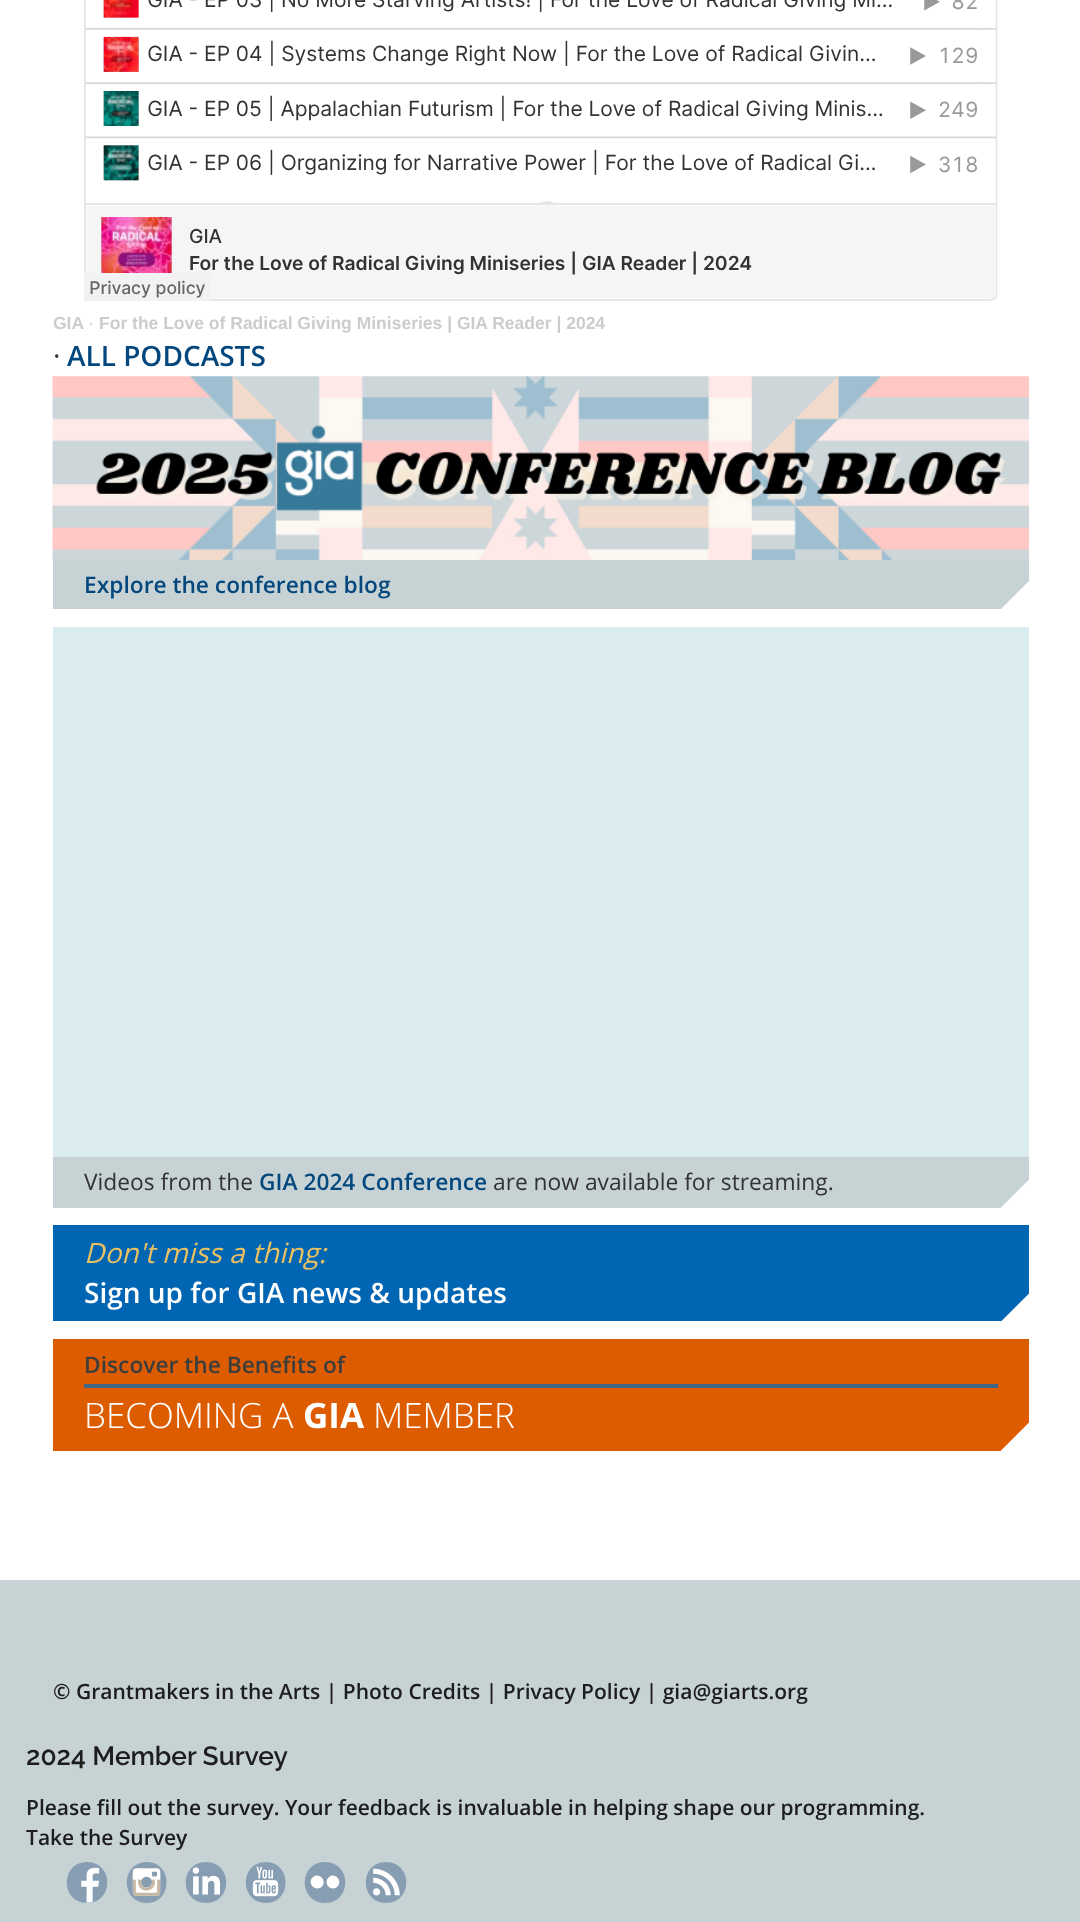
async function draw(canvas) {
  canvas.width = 1080
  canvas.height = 1922
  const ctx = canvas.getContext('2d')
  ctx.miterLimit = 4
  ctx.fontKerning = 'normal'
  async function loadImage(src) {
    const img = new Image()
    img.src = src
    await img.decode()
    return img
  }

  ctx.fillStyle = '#fff'
  ctx.fillRect(0, 0, 1080, 1922)
  ctx.drawImage(await loadImage('image0.png'), 84, 0, 914, 301)
  ctx.font = 'bold 17.5px Liberation Sans'
  ctx.fillStyle = '#ccc'
  ctx.fillText('GIA', 53, 329)
  ctx.font = '17.5px Liberation Sans'
  ctx.fillText('·', 88, 329)
  ctx.font = 'bold 17.5px Liberation Sans'
  ctx.fillText('For the Love of Radical Giving Miniseries | GIA Reader | 2024', 99, 329)
  ctx.font = '28px Open Sans'
  ctx.fillStyle = '#333'
  ctx.fillText('·', 53, 366)
  ctx.font = '600 28px Open Sans'
  ctx.fillStyle = '#03477d'
  ctx.fillText('ALL PODCASTS', 67, 366)
  ctx.drawImage(await loadImage('image1.png'), 52, 376, 977, 184)
  ctx.fillStyle = '#c7d2d5'
  ctx.fillRect(53, 560, 976, 49)
  ctx.font = '600 22.75px Open Sans'
  ctx.fillStyle = '#03477d'
  ctx.fillText('Explore the conference blog', 84, 593)
  ctx.fillStyle = '#fff'
  ctx.beginPath()
  ctx.moveTo(1032.5, 612.5)
  ctx.lineTo(997.5, 612.5)
  ctx.lineTo(1032.5, 577.5)
  ctx.closePath()
  ctx.fill()
  ctx.fillStyle = '#daecf0'
  ctx.fillRect(53, 627, 976, 530)
  ctx.fillStyle = '#c7d2d5'
  ctx.fillRect(53, 1157, 976, 51)
  ctx.font = '22.75px Open Sans'
  ctx.fillStyle = '#333'
  ctx.fillText('Videos from the', 84, 1190)
  ctx.font = '600 22.75px Open Sans'
  ctx.fillStyle = '#03477d'
  ctx.fillText('GIA 2024 Conference', 259, 1190)
  ctx.font = '22.75px Open Sans'
  ctx.fillStyle = '#333'
  ctx.fillText('are now available for streaming.', 493, 1190)
  ctx.fillStyle = '#fff'
  ctx.beginPath()
  ctx.moveTo(1032.5, 1211)
  ctx.lineTo(997.5, 1211)
  ctx.lineTo(1032.5, 1176)
  ctx.closePath()
  ctx.fill()
  ctx.fillStyle = '#0066b3'
  ctx.fillRect(53, 1225, 976, 96)
  ctx.font = 'italic 28px Open Sans'
  ctx.fillStyle = '#e9c163'
  ctx.fillText('Don\'t miss a thing:', 84, 1263)
  ctx.font = '600 28px Open Sans'
  ctx.fillStyle = '#fff'
  ctx.fillText('Sign up for GIA news & updates', 84, 1303)
  ctx.beginPath()
  ctx.moveTo(1032.5, 1325)
  ctx.lineTo(997.5, 1325)
  ctx.lineTo(1032.5, 1290)
  ctx.closePath()
  ctx.fill()
  ctx.fillStyle = '#de5c00'
  ctx.fillRect(53, 1339, 976, 112)
  ctx.font = '600 22.75px Open Sans'
  ctx.fillStyle = '#3c3d3d'
  ctx.fillText('Discover the Benefits of', 84, 1373)
  ctx.fillStyle = '#3e6788'
  ctx.fillRect(84, 1384, 914, 4)
  ctx.font = '300 35px Open Sans'
  ctx.fillStyle = '#fff'
  ctx.fillText('BECOMING A', 84, 1428)
  ctx.font = 'bold 35px Open Sans'
  ctx.fillText('GIA', 303, 1428)
  ctx.font = '300 35px Open Sans'
  ctx.fillText('MEMBER', 373, 1428)
  ctx.beginPath()
  ctx.moveTo(1032.5, 1454)
  ctx.lineTo(997.5, 1454)
  ctx.lineTo(1032.5, 1419)
  ctx.closePath()
  ctx.fill()
  ctx.fillStyle = '#c7d2d5'
  ctx.fillRect(0, 1580, 1080, 342)
  ctx.font = '600 21px Open Sans'
  ctx.fillStyle = '#1d1d1d'
  ctx.fillText('© Grantmakers in the Arts | Photo Credits | Privacy Policy | gia@giarts.org', 53, 1699)
  ctx.font = '600 26.25px Raleway'
  ctx.fillText('2024 Member Survey', 26, 1765)
  ctx.font = '600 21px Open Sans'
  ctx.fillText('Please fill out the survey. Your feedback is invaluable in helping shape our programming.', 26, 1815)
  ctx.fillText('Take the Survey', 26, 1845)
  ctx.fillStyle = '#869db2'
  ctx.beginPath()
  ctx.moveTo(87, 1862)
  ctx.bezierCurveTo(114, 1862, 114, 1903, 87, 1903)
  ctx.bezierCurveTo(60, 1903, 60, 1862, 87, 1862)
  ctx.closePath()
  ctx.fill()
  ctx.drawImage(await loadImage('image2.png'), 81, 1867, 19, 36)
  ctx.beginPath()
  ctx.moveTo(147, 1862)
  ctx.bezierCurveTo(173, 1862, 173, 1903, 147, 1903)
  ctx.bezierCurveTo(120, 1903, 120, 1862, 147, 1862)
  ctx.closePath()
  ctx.fill()
  ctx.drawImage(await loadImage('image3.png'), 132, 1868, 29, 28)
  ctx.drawImage(await loadImage('image4.png'), 132, 1868, 29, 28)
  ctx.drawImage(await loadImage('image5.png'), 132, 1868, 29, 12)
  ctx.beginPath()
  ctx.moveTo(206, 1862)
  ctx.bezierCurveTo(233, 1862, 233, 1903, 206, 1903)
  ctx.bezierCurveTo(179, 1903, 179, 1862, 206, 1862)
  ctx.closePath()
  ctx.fill()
  ctx.drawImage(await loadImage('image6.png'), 192, 1867, 28, 28)
  ctx.beginPath()
  ctx.moveTo(266, 1862)
  ctx.bezierCurveTo(292, 1862, 292, 1903, 266, 1903)
  ctx.bezierCurveTo(239, 1903, 239, 1862, 266, 1862)
  ctx.closePath()
  ctx.fill()
  ctx.drawImage(await loadImage('image7.png'), 252, 1866, 27, 31)
  ctx.beginPath()
  ctx.moveTo(325, 1862)
  ctx.bezierCurveTo(352, 1862, 352, 1903, 325, 1903)
  ctx.bezierCurveTo(298, 1903, 298, 1862, 325, 1862)
  ctx.closePath()
  ctx.fill()
  ctx.fillStyle = '#fff'
  ctx.beginPath()
  ctx.moveTo(312.5, 1877.5)
  ctx.bezierCurveTo(318.5, 1871.5, 327.5, 1880.5, 322, 1886.5)
  ctx.bezierCurveTo(316, 1892.5, 306.5, 1883.5, 312.5, 1877.5)
  ctx.closePath()
  ctx.moveTo(328.5, 1877.5)
  ctx.bezierCurveTo(334, 1871.5, 343.5, 1880.5, 337.5, 1886.5)
  ctx.bezierCurveTo(331.5, 1892.5, 322.5, 1883.5, 328.5, 1877.5)
  ctx.closePath()
  ctx.fill()
  ctx.fillStyle = '#869db2'
  ctx.beginPath()
  ctx.moveTo(386, 1862)
  ctx.bezierCurveTo(413, 1862, 413, 1903, 386, 1903)
  ctx.bezierCurveTo(359, 1903, 359, 1862, 386, 1862)
  ctx.closePath()
  ctx.fill()
  ctx.drawImage(await loadImage('image8.png'), 373, 1868, 27, 28)
}

draw(document.querySelector('canvas'))
